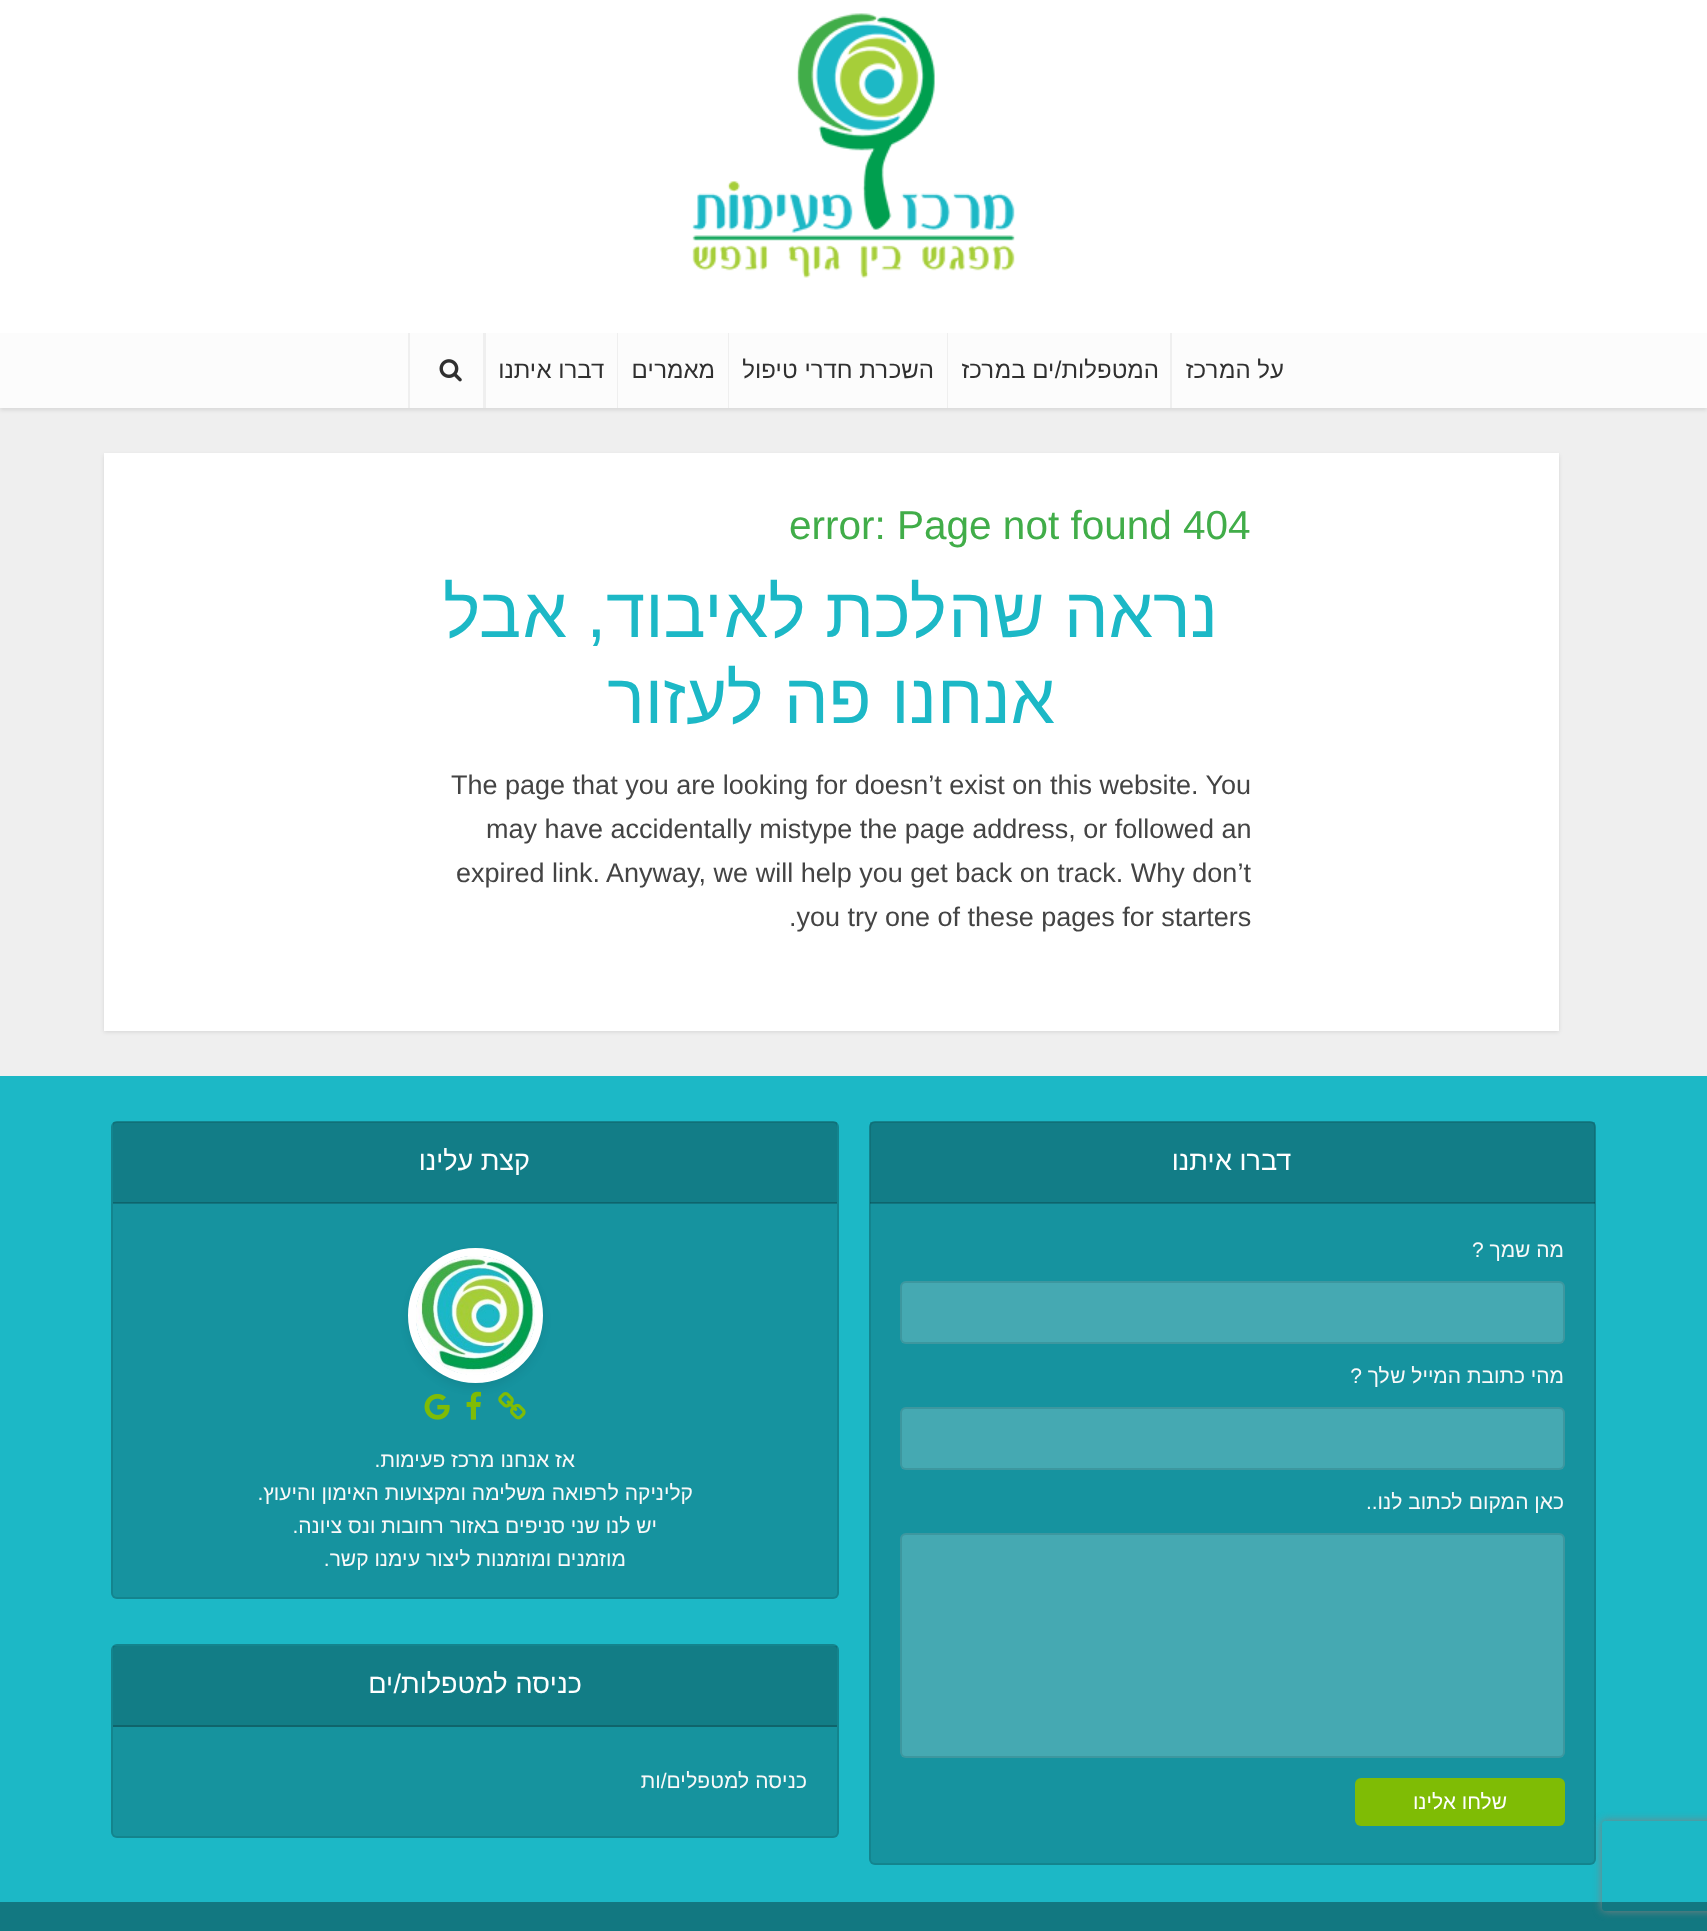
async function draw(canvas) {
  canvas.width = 1707
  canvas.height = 1931
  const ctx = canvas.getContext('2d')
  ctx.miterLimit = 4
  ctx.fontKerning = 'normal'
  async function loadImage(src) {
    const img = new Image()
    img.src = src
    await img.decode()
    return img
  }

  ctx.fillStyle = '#efefef'
  ctx.fillRect(0, 0, 1707, 1931)
  ctx.fillStyle = '#0000001a'
  ctx.filter = 'blur(2px)'
  ctx.beginPath()
  ctx.rect(0, -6, 1707, 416)
  ctx.fill()
  ctx.filter = 'none'
  ctx.fillStyle = '#fff'
  ctx.fillRect(0, 0, 1707, 333)
  ctx.drawImage(await loadImage('image0.png'), 692, 13, 323, 265)
  ctx.fillStyle = '#fcfcfc'
  ctx.fillRect(0, 333, 1707, 75)
  ctx.fillStyle = '#efefef'
  ctx.fillRect(1170, 333, 2, 75)
  ctx.direction = 'rtl'
  ctx.font = '24px Arimo'
  ctx.fillStyle = '#303030'
  ctx.fillText('על המרכז', 1284, 378)
  ctx.fillStyle = '#efefef'
  ctx.fillRect(947, 333, 1, 75)
  ctx.fillStyle = '#303030'
  ctx.fillText('המטפלות/ים במרכז', 1159, 378)
  ctx.fillStyle = '#efefef'
  ctx.fillRect(728, 333, 1, 75)
  ctx.fillStyle = '#303030'
  ctx.fillText('השכרת חדרי טיפול', 934, 378)
  ctx.fillStyle = '#efefef'
  ctx.fillRect(617, 333, 1, 75)
  ctx.fillStyle = '#303030'
  ctx.fillText('מאמרים', 715, 378)
  ctx.fillStyle = '#efefef'
  ctx.fillRect(483, 333, 3, 75)
  ctx.fillStyle = '#303030'
  ctx.fillText('דברו איתנו', 605, 378)
  ctx.fillStyle = '#efefef'
  ctx.fillRect(408, 333, 2, 75)
  ctx.drawImage(await loadImage('image1.png'), 439, 359, 23, 23)
  ctx.fillStyle = '#0000001a'
  ctx.filter = 'blur(2px)'
  ctx.beginPath()
  ctx.rect(104, 455, 1455, 577)
  ctx.fill()
  ctx.filter = 'none'
  ctx.fillStyle = '#fff'
  ctx.fillRect(104, 453, 1455, 578)
  ctx.direction = 'ltr'
  ctx.font = '40.5px Arimo'
  ctx.fillStyle = '#41ad49'
  ctx.fillText('error: Page not found 404', 789, 539)
  ctx.direction = 'rtl'
  ctx.font = '70.5px Arimo'
  ctx.fillStyle = '#1cb8c6'
  ctx.fillText('נראה שהלכת לאיבוד, אבל', 1218, 637)
  ctx.fillText('אנחנו פה לעזור', 1055, 723)
  ctx.direction = 'ltr'
  ctx.font = '27px Arimo'
  ctx.fillStyle = '#444'
  ctx.fillText('The page that you are looking for doesn’t exist on this website. You', 451, 794)
  ctx.fillText('may have accidentally mistype the page address, or followed an', 486, 838)
  ctx.fillText('expired link. Anyway, we will help you get back on track. Why don’t', 456, 882)
  ctx.fillText('.you try one of these pages for starters', 789, 926)
  ctx.fillStyle = '#1cb8c6'
  ctx.fillRect(0, 1076, 1707, 826)
  ctx.fillStyle = '#16939f'
  ctx.beginPath()
  ctx.roundRect(869, 1121, 727, 744, 6)
  ctx.fill()
  ctx.beginPath()
  ctx.roundRect(870, 1122, 725, 742, 5)
  ctx.strokeStyle = '#0000001a'
  ctx.lineWidth = 2
  ctx.stroke()
  ctx.fillStyle = '#00000026'
  ctx.fillRect(870, 1122, 725, 81)
  ctx.fillStyle = '#00000033'
  ctx.fillRect(870, 1202, 725, 2)
  ctx.direction = 'rtl'
  ctx.fillStyle = '#fff'
  ctx.fillText('דברו איתנו', 1292, 1170)
  ctx.font = '21px Arimo'
  ctx.fillStyle = '#f9f9f9'
  ctx.fillText('מה שמך ?', 1564, 1257)
  ctx.fillStyle = '#45a9b2'
  ctx.beginPath()
  ctx.roundRect(900, 1281, 665, 63, 6)
  ctx.fill()
  ctx.beginPath()
  ctx.roundRect(901, 1282, 663, 61, 5)
  ctx.stroke()
  ctx.fillStyle = '#f9f9f9'
  ctx.fillText('מהי כתובת המייל שלך ?', 1564, 1383)
  ctx.fillStyle = '#45a9b2'
  ctx.beginPath()
  ctx.roundRect(900, 1407, 665, 63, 6)
  ctx.fill()
  ctx.beginPath()
  ctx.roundRect(901, 1408, 663, 61, 5)
  ctx.stroke()
  ctx.fillStyle = '#f9f9f9'
  ctx.fillText('כאן המקום לכתוב לנו..', 1564, 1509)
  ctx.fillStyle = '#45a9b2'
  ctx.beginPath()
  ctx.roundRect(900, 1533, 665, 225, 6)
  ctx.fill()
  ctx.beginPath()
  ctx.roundRect(901, 1534, 663, 223, 5)
  ctx.stroke()
  ctx.fillStyle = '#7fbc05'
  ctx.beginPath()
  ctx.roundRect(1355, 1778, 210, 48, 6)
  ctx.fill()
  ctx.font = '21px Liberation Sans'
  ctx.fillStyle = '#fff'
  ctx.fillText('שלחו אלינו', 1507, 1809)
  ctx.fillStyle = '#16939f'
  ctx.beginPath()
  ctx.roundRect(111, 1121, 728, 478, 6)
  ctx.fill()
  ctx.beginPath()
  ctx.roundRect(112, 1122, 726, 476, 5)
  ctx.stroke()
  ctx.fillStyle = '#00000026'
  ctx.fillRect(113, 1122, 724, 81)
  ctx.fillStyle = '#00000033'
  ctx.fillRect(113, 1202, 724, 2)
  ctx.font = '27px Arimo'
  ctx.fillStyle = '#fff'
  ctx.fillText('קצת עלינו', 530, 1170)
  ctx.drawImage(await loadImage('image3.png'), 498, 1392, 28, 28)
  ctx.drawImage(await loadImage('image4.png'), 466, 1391, 16, 29)
  ctx.drawImage(await loadImage('image5.png'), 424, 1393, 26, 27)
  ctx.fillStyle = '#00000012'
  ctx.filter = 'blur(4.5px)'
  ctx.beginPath()
  ctx.roundRect(408, 1253, 135, 135, 67.5)
  ctx.fill()
  ctx.filter = 'none'
  ctx.beginPath()
  ctx.arc(475.5, 1315.5, 63.5, 0, 2 * Math.PI)
  ctx.strokeStyle = '#fff'
  ctx.lineWidth = 8
  ctx.stroke()
  ctx.drawImage(await loadImage('image2.png'), 416, 1256, 119, 119)
  ctx.font = '21px Arimo'
  ctx.fillStyle = '#f9f9f9'
  ctx.fillText('אז אנחנו מרכז פעימות.', 575, 1467)
  ctx.fillText('קליניקה לרפואה משלימה ומקצועות האימון והיעוץ.', 693, 1500)
  ctx.fillText('יש לנו שני סניפים באזור רחובות ונס ציונה.', 657, 1533)
  ctx.fillText('מוזמנים ומוזמנות ליצור עימנו קשר.', 626, 1566)
  ctx.fillStyle = '#16939e'
  ctx.beginPath()
  ctx.roundRect(111, 1644, 728, 194, 6)
  ctx.fill()
  ctx.beginPath()
  ctx.roundRect(112, 1645, 726, 192, 5)
  ctx.strokeStyle = '#0000001a'
  ctx.lineWidth = 2
  ctx.stroke()
  ctx.fillStyle = '#00000026'
  ctx.fillRect(113, 1646, 724, 79)
  ctx.fillStyle = '#0f646b'
  ctx.fillRect(113, 1725, 724, 2)
  ctx.font = '27px Arimo'
  ctx.fillStyle = '#fff'
  ctx.fillText('כניסה למטפלות/ים', 582, 1693)
  ctx.font = '21px Arimo'
  ctx.fillStyle = '#f9f9f9'
  ctx.fillText('כניסה למטפלים/ות', 807, 1788)
  ctx.fillStyle = '#127881'
  ctx.fillRect(0, 1902, 1707, 29)
  ctx.save()
  ctx.beginPath()
  ctx.moveTo(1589, 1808)
  ctx.lineTo(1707, 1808)
  ctx.lineTo(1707, 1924)
  ctx.lineTo(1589, 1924)
  ctx.closePath()
  ctx.moveTo(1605, 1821)
  ctx.lineTo(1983, 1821)
  ctx.bezierCurveTo(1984.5, 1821, 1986, 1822.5, 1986, 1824)
  ctx.lineTo(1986, 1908)
  ctx.bezierCurveTo(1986, 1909.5, 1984.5, 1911, 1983, 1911)
  ctx.lineTo(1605, 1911)
  ctx.bezierCurveTo(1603.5, 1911, 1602, 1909.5, 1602, 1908)
  ctx.lineTo(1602, 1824)
  ctx.bezierCurveTo(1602, 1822.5, 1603.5, 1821, 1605, 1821)
  ctx.closePath()
  ctx.clip('evenodd')
  ctx.fillStyle = '#808080'
  ctx.filter = 'blur(4px)'
  ctx.beginPath()
  ctx.roundRect(1602, 1821, 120, 90, 3)
  ctx.fill()
  ctx.filter = 'none'
  ctx.restore()
}

draw(document.querySelector('canvas'))
